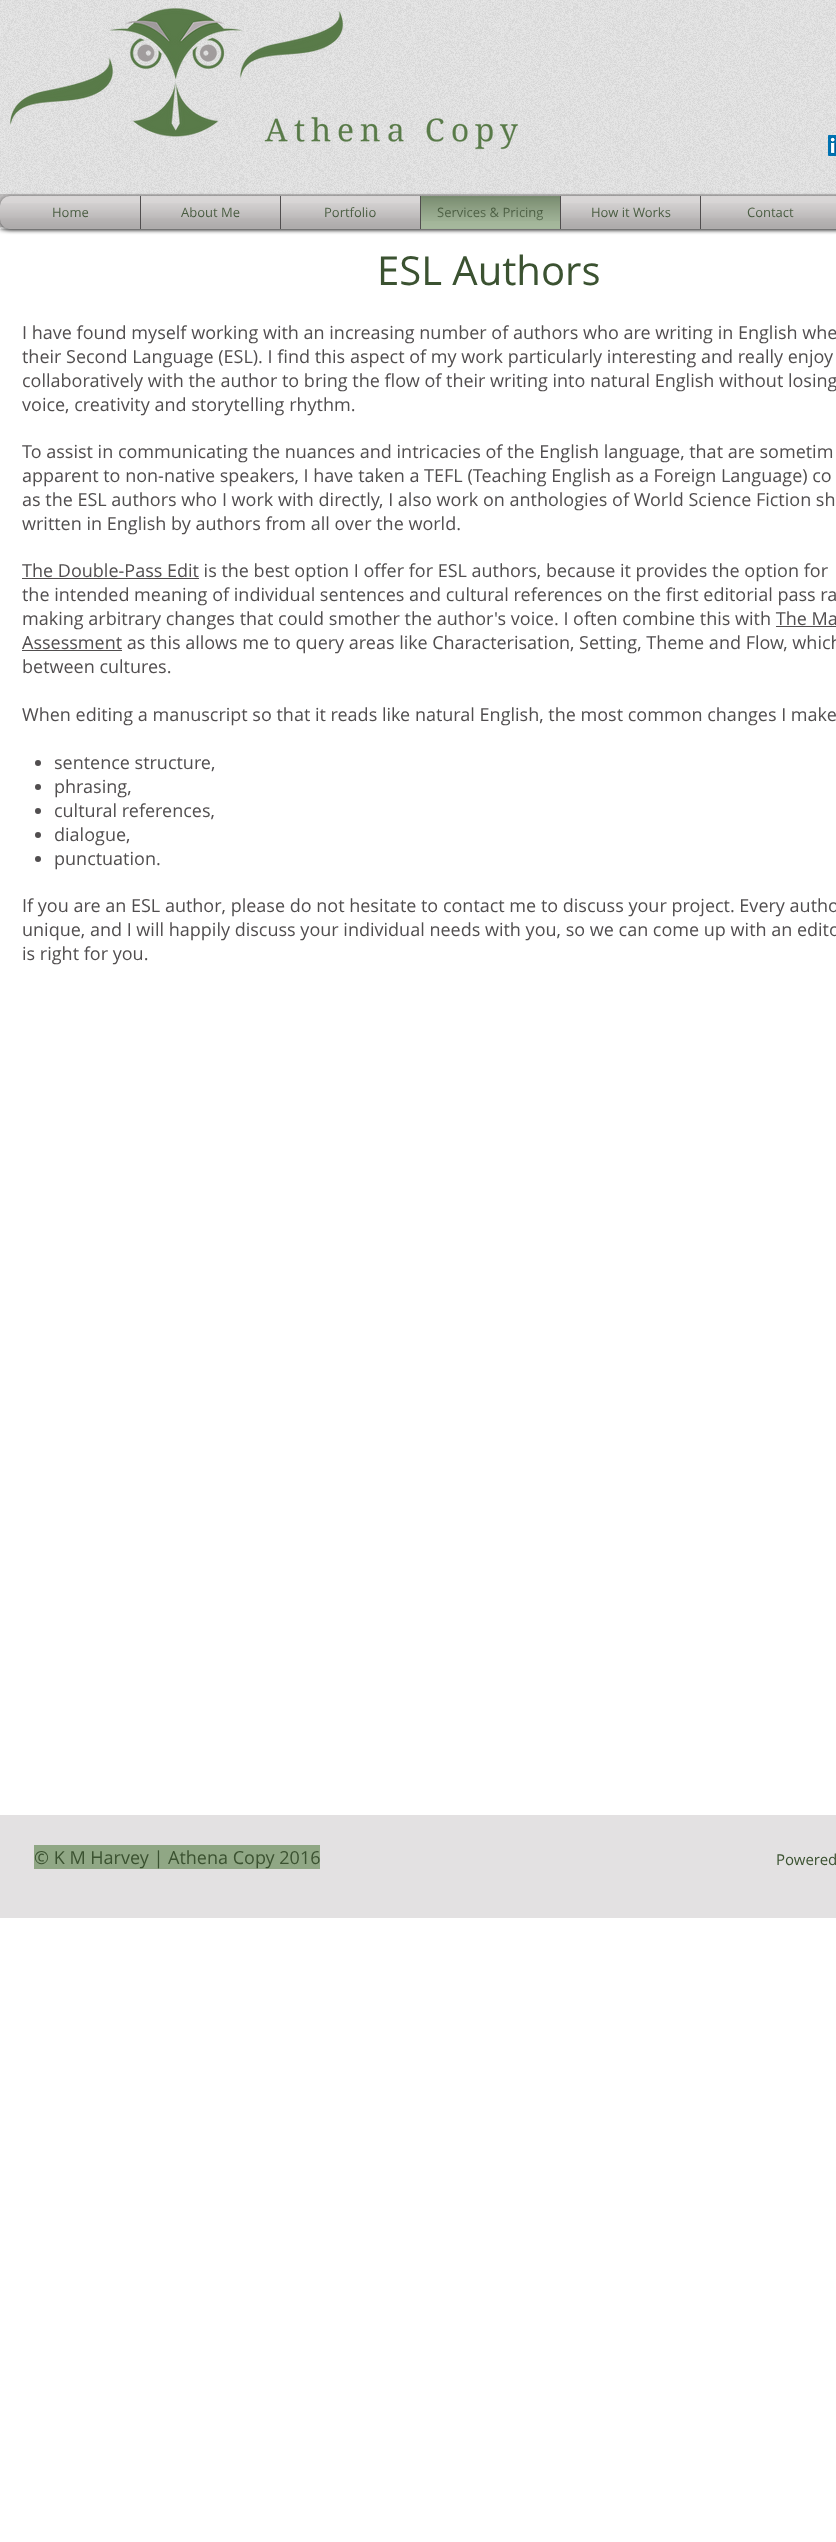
async function draw(canvas) {
  canvas.width = 836
  canvas.height = 2542
  const ctx = canvas.getContext('2d')
  ctx.miterLimit = 4
  ctx.fontKerning = 'normal'
  async function loadImage(src) {
    const img = new Image()
    img.src = src
    await img.decode()
    return img
  }

  ctx.fillStyle = '#fff'
  ctx.fillRect(0, 0, 836, 2542)
  ctx.fillStyle = '#000000b3'
  ctx.filter = 'blur(2.5px)'
  ctx.beginPath()
  ctx.rect(0, 0, 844, 229)
  ctx.fill()
  ctx.filter = 'none'
  ctx.fillStyle = '#e6e6e6'
  ctx.fillRect(0, 0, 836, 229)
  ctx.drawImage(await loadImage('image1.png'), 0, 0, 836, 229)
  ctx.drawImage(await loadImage('image2.png'), 264, 116, 254, 34)
  ctx.drawImage(await loadImage('image0.png'), 10, 8, 333, 129)
  ctx.drawImage(await loadImage('image3.png'), 828, 135, 8, 21)
  ctx.fillStyle = '#a19c9d8c'
  ctx.fillRect(0, 194, 836, 33)
  ctx.fillStyle = '#00000099'
  ctx.filter = 'blur(2px)'
  ctx.beginPath()
  ctx.roundRect(0, 197, 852, 33, 10)
  ctx.fill()
  ctx.filter = 'none'
  ctx.drawImage(await loadImage('image4.png'), 0, 196, 10, 10)
  ctx.drawImage(await loadImage('image5.png'), 0, 205, 10, 24)
  ctx.fillStyle = '#d0cdcd'
  ctx.beginPath()
  ctx.roundRect(0, 196, 140, 33, [10, 0, 0, 10])
  ctx.fill()
  ctx.font = '13px Open Sans'
  ctx.fillStyle = '#3b5231'
  ctx.fillText('Home', 52, 217)
  ctx.drawImage(await loadImage('image6.png'), 0, 196, 140, 22)
  ctx.drawImage(await loadImage('image7.png'), 0, 203, 140, 26)
  ctx.fillStyle = '#d0cdcd'
  ctx.fillRect(141, 196, 139, 33)
  ctx.fillStyle = '#514e4f'
  ctx.fillRect(140, 196, 1, 33)
  ctx.fillStyle = '#3b5231'
  ctx.fillText('About Me', 181, 217)
  ctx.drawImage(await loadImage('image8.png'), 141, 196, 139, 22)
  ctx.drawImage(await loadImage('image9.png'), 141, 203, 139, 26)
  ctx.fillStyle = '#d0cdcd'
  ctx.fillRect(281, 196, 139, 33)
  ctx.fillStyle = '#514e4f'
  ctx.fillRect(280, 196, 1, 33)
  ctx.fillStyle = '#3b5231'
  ctx.fillText('Portfolio', 324, 217)
  ctx.drawImage(await loadImage('image10.png'), 281, 196, 139, 22)
  ctx.drawImage(await loadImage('image11.png'), 281, 203, 139, 26)
  ctx.fillStyle = '#90a785'
  ctx.fillRect(421, 196, 139, 33)
  ctx.fillStyle = '#514e4f'
  ctx.fillRect(420, 196, 1, 33)
  ctx.fillStyle = '#3b5231'
  ctx.fillText('Services & Pricing', 437, 217)
  ctx.drawImage(await loadImage('image12.png'), 421, 196, 139, 25)
  ctx.drawImage(await loadImage('image13.png'), 421, 198, 139, 31)
  ctx.fillStyle = '#d0cdcd'
  ctx.fillRect(561, 196, 139, 33)
  ctx.fillStyle = '#514e4f'
  ctx.fillRect(560, 196, 1, 33)
  ctx.fillStyle = '#3b5231'
  ctx.fillText('How it Works', 591, 217)
  ctx.drawImage(await loadImage('image14.png'), 561, 196, 139, 22)
  ctx.drawImage(await loadImage('image15.png'), 561, 203, 139, 26)
  ctx.fillStyle = '#d0cdcd'
  ctx.fillRect(701, 196, 135, 33)
  ctx.fillStyle = '#514e4f'
  ctx.fillRect(700, 196, 1, 33)
  ctx.fillStyle = '#3b5231'
  ctx.fillText('Contact', 747, 217)
  ctx.drawImage(await loadImage('image16.png'), 701, 196, 135, 22)
  ctx.drawImage(await loadImage('image17.png'), 701, 203, 135, 26)
  ctx.font = '40px Open Sans'
  ctx.fillText('ESL Authors', 377, 285)
  ctx.font = '18px Open Sans'
  ctx.fillStyle = '#514e4f'
  ctx.fillText('I have found myself working with an increasing number of authors who are writing in English whe', 22, 339)
  ctx.fillText('their Second Language (ESL). I find this aspect of my work particularly interesting and really enjoy', 22, 363)
  ctx.fillText('collaboratively with the author to bring the flow of their writing into natural English without losing', 22, 387)
  ctx.fillText('voice, creativity and storytelling rhythm.', 22, 411)
  ctx.fillText('To assist in communicating the nuances and intricacies of the English language, that are sometim', 22, 458)
  ctx.fillText('apparent to non-native speakers, I have taken a TEFL (Teaching English as a Foreign Language) co', 22, 482)
  ctx.fillText('as the ESL authors who I work with directly, I also work on anthologies of World Science Fiction sh', 22, 506)
  ctx.fillText('written in English by authors from all over the world.', 22, 530)
  ctx.fillRect(22, 578, 177, 1)
  ctx.fillText('The Double-Pass Edit is the best option I offer for ESL authors, because it provides the option for', 22, 577)
  ctx.fillText('the intended meaning of individual sentences and cultural references on the first editorial pass ra', 22, 601)
  ctx.fillText('making arbitrary changes that could smother the author\'s voice. I often combine this with The Ma', 22, 625)
  ctx.fillRect(776, 626, 60, 1)
  ctx.fillRect(22, 650, 100, 1)
  ctx.fillText('Assessment as this allows me to query areas like Characterisation, Setting, Theme and Flow, which', 22, 649)
  ctx.fillText('between cultures.', 22, 673)
  ctx.fillText('When editing a manuscript so that it reads like natural English, the most common changes I make', 22, 721)
  ctx.beginPath()
  ctx.arc(38, 763, 3, 0, 2 * Math.PI)
  ctx.fill()
  ctx.fillText('sentence structure,', 54, 769)
  ctx.beginPath()
  ctx.arc(38, 787, 3, 0, 2 * Math.PI)
  ctx.fill()
  ctx.fillText('phrasing,', 54, 793)
  ctx.beginPath()
  ctx.arc(38, 811, 3, 0, 2 * Math.PI)
  ctx.fill()
  ctx.fillText('cultural references,', 54, 817)
  ctx.beginPath()
  ctx.arc(38, 835, 3, 0, 2 * Math.PI)
  ctx.fill()
  ctx.fillText('dialogue,', 54, 841)
  ctx.beginPath()
  ctx.arc(38, 859, 3, 0, 2 * Math.PI)
  ctx.fill()
  ctx.fillText('punctuation.', 54, 865)
  ctx.fillText('If you are an ESL author, please do not hesitate to contact me to discuss your project. Every autho', 22, 912)
  ctx.fillText('unique, and I will happily discuss your individual needs with you, so we can come up with an edito', 22, 936)
  ctx.fillText('is right for you.', 22, 960)
  ctx.fillStyle = '#e3e1e2'
  ctx.fillRect(0, 1815, 836, 103)
  ctx.fillStyle = '#90a785'
  ctx.fillRect(34, 1845, 286, 24)
  ctx.fillStyle = '#3b5231'
  ctx.fillText('© K M Harvey | Athena Copy 2016', 34, 1864)
  ctx.font = '15px Open Sans'
  ctx.fillText('Powered', 776, 1865)
}

draw(document.querySelector('canvas'))
